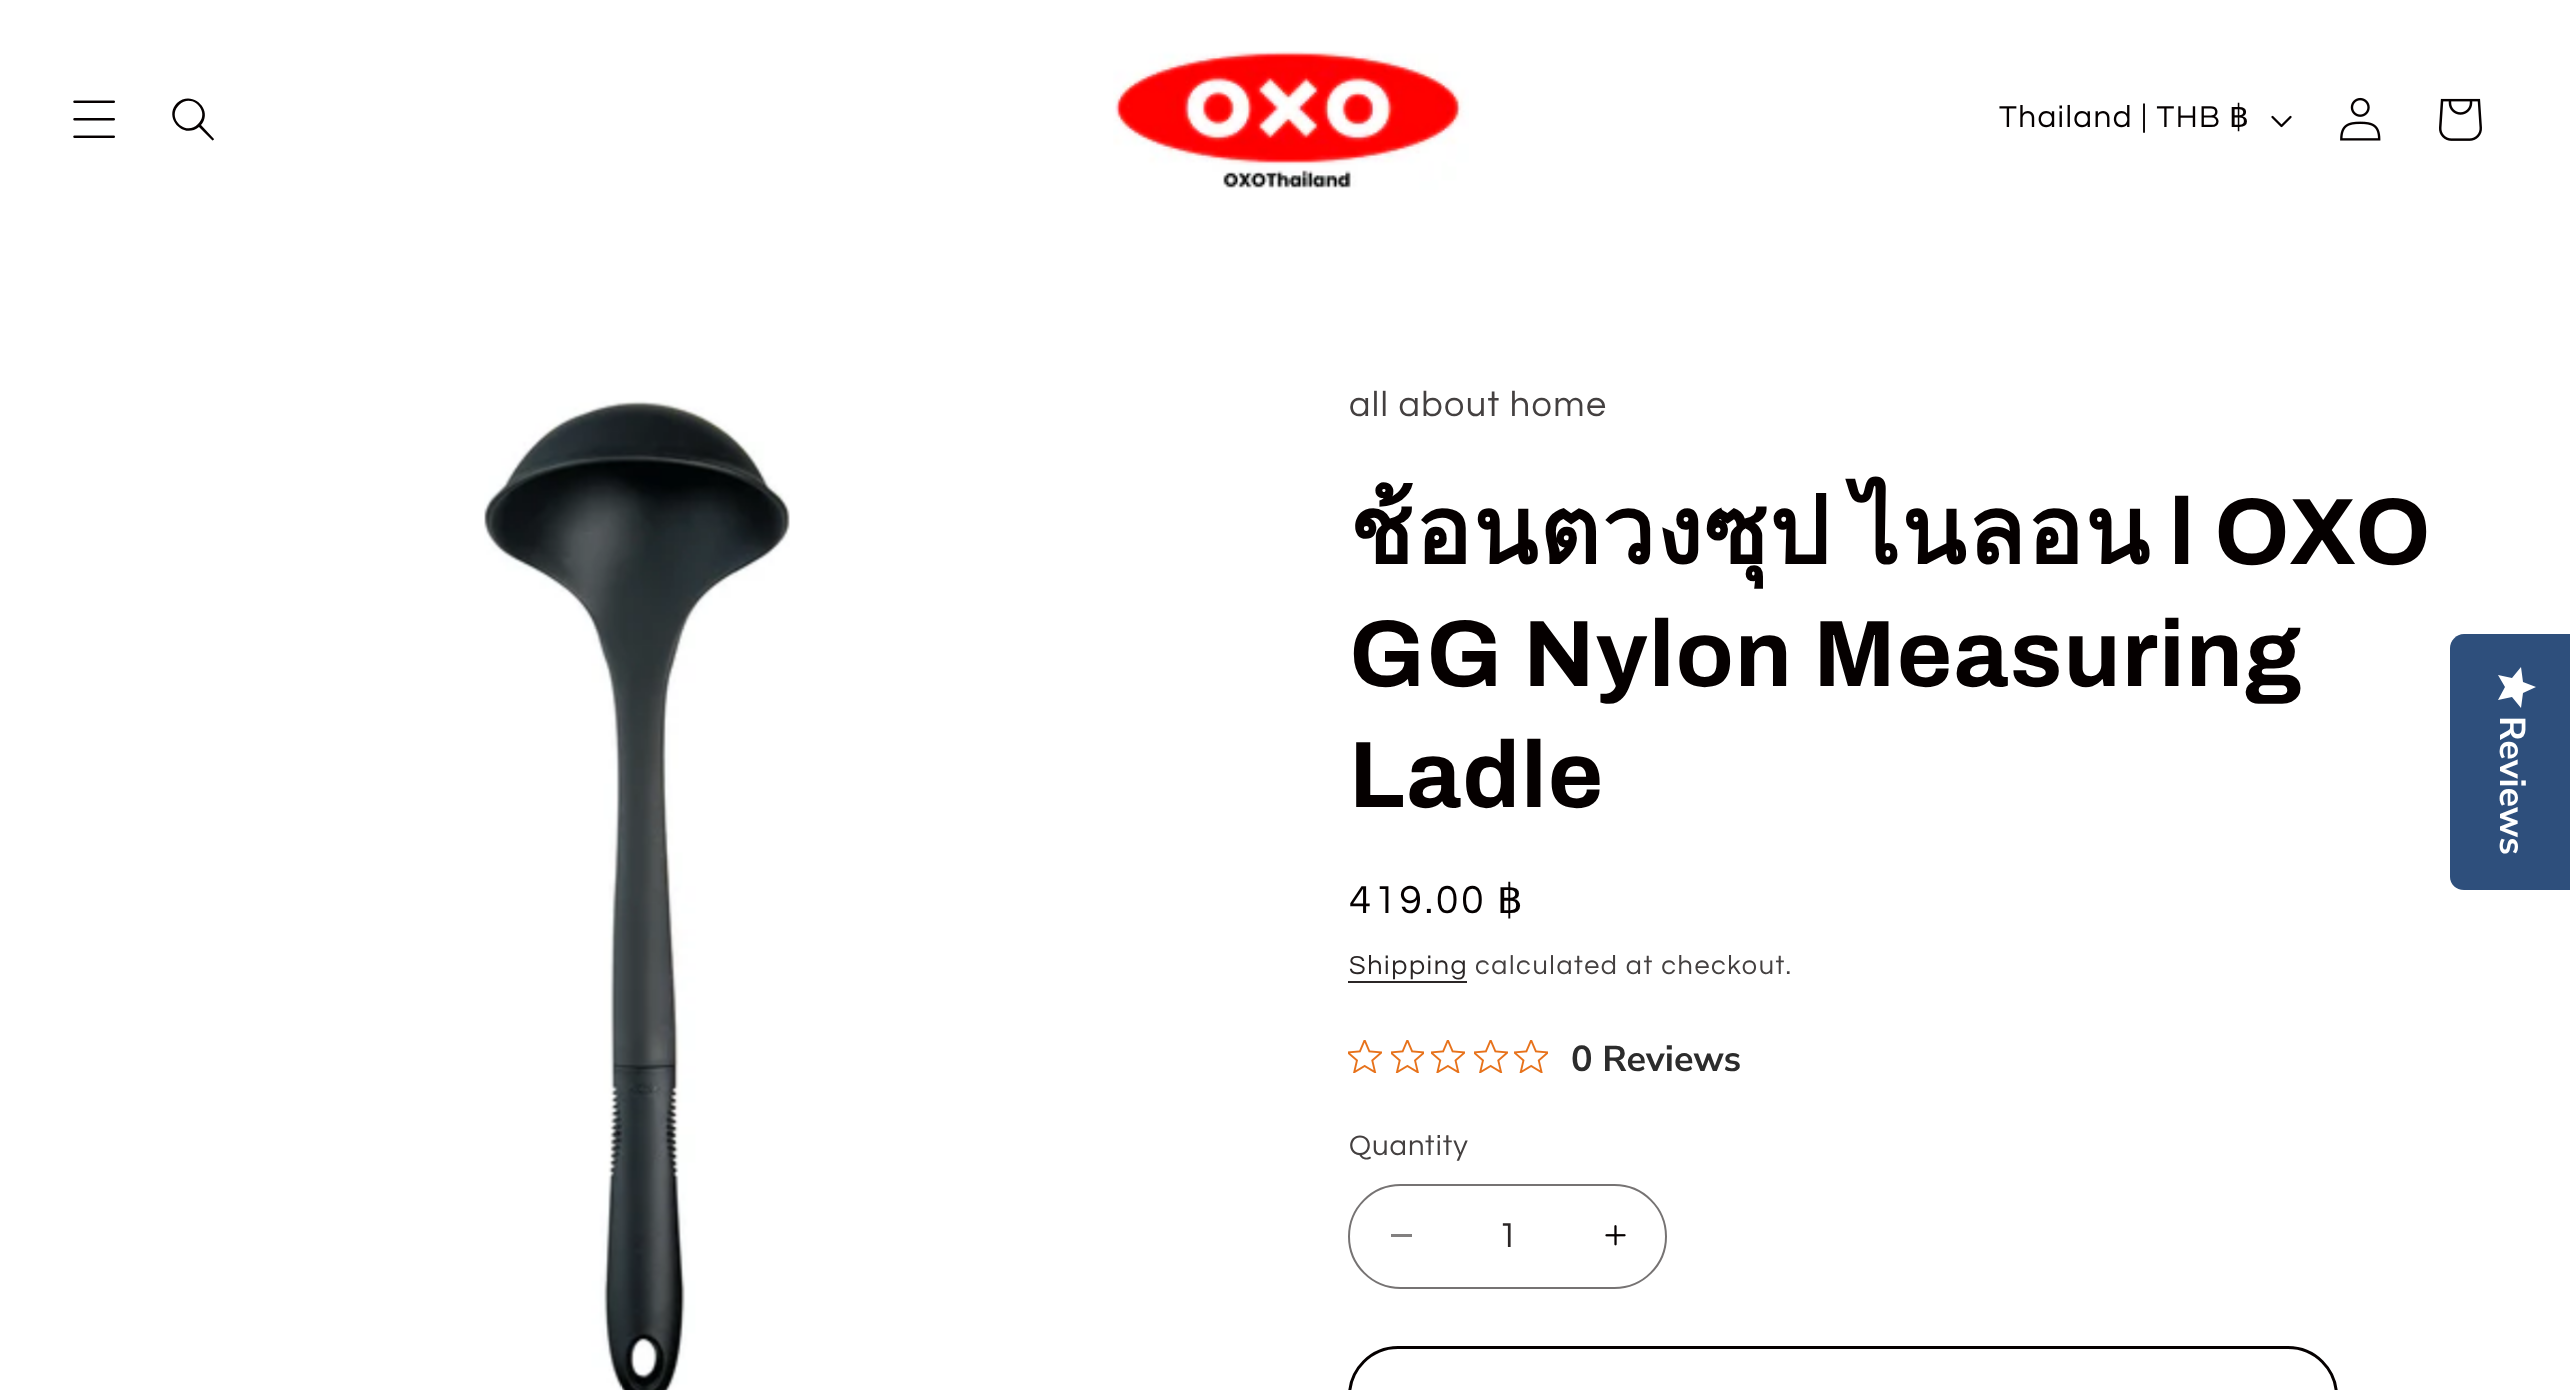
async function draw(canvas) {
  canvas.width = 2570
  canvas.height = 1390
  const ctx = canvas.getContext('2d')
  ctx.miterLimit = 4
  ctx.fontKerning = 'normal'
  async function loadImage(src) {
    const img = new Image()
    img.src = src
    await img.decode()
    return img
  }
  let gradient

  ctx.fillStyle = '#fff'
  ctx.fillRect(0, 0, 2570, 1390)
  ctx.drawImage(await loadImage('image0.png'), 73, 100, 42, 38)
  ctx.fillStyle = '#050000'
  ctx.beginPath()
  ctx.moveTo(198, 124)
  ctx.bezierCurveTo(186, 137, 166, 118, 179, 105)
  ctx.bezierCurveTo(192, 92, 211, 112, 198, 124)
  ctx.moveTo(199, 127)
  ctx.bezierCurveTo(183, 140, 163, 117, 177, 103)
  ctx.bezierCurveTo(192, 89, 214, 110, 201, 125)
  ctx.lineTo(214, 139)
  ctx.bezierCurveTo(214, 140, 212, 141, 212, 140)
  ctx.closePath()
  ctx.fill('evenodd')
  ctx.drawImage(await loadImage('image1.png'), 1113, 51, 356, 139)
  ctx.letterSpacing = '1.4px'
  ctx.font = '31.5px Questrial'
  ctx.fillText('Thailand | THB', 1999, 127)
  ctx.font = '31.5px DejaVu Sans'
  ctx.fillText('฿', 2229, 127)
  ctx.drawImage(await loadImage('image2.png'), 2271, 115, 21, 13)
  ctx.drawImage(await loadImage('image3.png'), 2340, 97, 41, 44)
  ctx.drawImage(await loadImage('image4.png'), 2439, 98, 43, 43)
  ctx.drawImage(await loadImage('image5.png'), 484, 400, 306, 990)
  ctx.font = '36px Questrial'
  ctx.fillStyle = '#444040'
  ctx.fillText('all about home', 1349, 416)
  ctx.font = 'bold 94.5px Loma'
  ctx.fillStyle = '#050000'
  ctx.fillText('ช้อนตวงซุป', 1349, 564)
  ctx.fillText('ไนลอน', 1852, 564)
  ctx.wordSpacing = '-1px'
  ctx.font = 'bold 94.5px Archivo'
  ctx.fillText('l OXO', 2169, 564)
  ctx.wordSpacing = '0px'
  ctx.fillText('GG Nylon Measuring', 1349, 686)
  ctx.fillText('Ladle', 1349, 807)
  ctx.letterSpacing = '3px'
  ctx.font = '40.5px Questrial'
  ctx.fillText('419.00', 1349, 913)
  ctx.font = '40.5px DejaVu Sans'
  ctx.fillText('฿', 1497, 913)
  ctx.letterSpacing = '1.6px'
  ctx.font = '27px Questrial'
  ctx.fillStyle = '#2b2626'
  ctx.fillText('Shipping', 1349, 974)
  ctx.fillRect(1348, 981, 119, 2)
  ctx.fillStyle = '#444040'
  ctx.fillText('calculated at checkout.', 1475, 974)
  ctx.drawImage(await loadImage('image6.png'), 1348, 1040, 34, 33)
  ctx.drawImage(await loadImage('image7.png'), 1391, 1040, 33, 33)
  ctx.drawImage(await loadImage('image8.png'), 1431, 1040, 34, 33)
  ctx.drawImage(await loadImage('image6.png'), 1474, 1040, 34, 33)
  ctx.drawImage(await loadImage('image9.png'), 1514, 1040, 34, 33)
  ctx.letterSpacing = '0px'
  ctx.font = '200 36px Nunito Sans'
  ctx.fillStyle = '#2c2c2c'
  ctx.fillText('0 Reviews', 1571, 1071)
  ctx.letterSpacing = '1px'
  ctx.font = '29.25px Questrial'
  ctx.fillStyle = '#444040'
  ctx.fillText('Quantity', 1349, 1155)
  ctx.fillStyle = '#828080'
  ctx.fillRect(1391, 1234, 21, 3)
  ctx.drawImage(await loadImage('image10.png'), 1605, 1225, 21, 21)
  ctx.beginPath()
  ctx.roundRect(1349, 1185, 317, 103, 51.5)
  ctx.strokeStyle = '#767373'
  ctx.lineWidth = 2
  ctx.stroke()
  ctx.letterSpacing = '0px'
  ctx.font = '36px Questrial'
  ctx.fillStyle = '#2b2626'
  ctx.fillText('1', 1498, 1247)
  ctx.beginPath()
  ctx.roundRect(1349.5, 1347.5, 987, 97, 51)
  ctx.strokeStyle = '#050000'
  ctx.lineWidth = 3
  ctx.stroke()
  ctx.fillStyle = '#2e4f7c'
  ctx.beginPath()
  ctx.moveTo(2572, 634)
  ctx.lineTo(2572, 890)
  ctx.lineTo(2464, 890)
  ctx.bezierCurveTo(2456, 890, 2450, 884, 2450, 877)
  ctx.lineTo(2450, 648)
  ctx.bezierCurveTo(2450, 641, 2456, 634, 2464, 634)
  ctx.closePath()
  ctx.fill()
  gradient = ctx.createLinearGradient(2536, 667, 2536, 708)
  gradient.addColorStop(1, '#fff')
  gradient.addColorStop(1, '#eaeaea')
  ctx.fillStyle = gradient
  ctx.beginPath()
  ctx.moveTo(2505, 687)
  ctx.lineTo(2498, 700)
  ctx.lineTo(2512, 697)
  ctx.lineTo(2521, 708)
  ctx.lineTo(2523, 693)
  ctx.lineTo(2536, 687)
  ctx.lineTo(2523, 682)
  ctx.lineTo(2521, 667)
  ctx.lineTo(2512, 678)
  ctx.lineTo(2498, 675)
  ctx.closePath()
  ctx.fill()
  ctx.font = '200 36px Nunito Sans'
  ctx.fillStyle = '#fff'
  ctx.save()
  ctx.translate(2500, 716)
  ctx.rotate(90 * Math.PI / 180)
  ctx.fillText('Reviews', 0, 0)
  ctx.restore()
}

draw(document.querySelector('canvas'))
